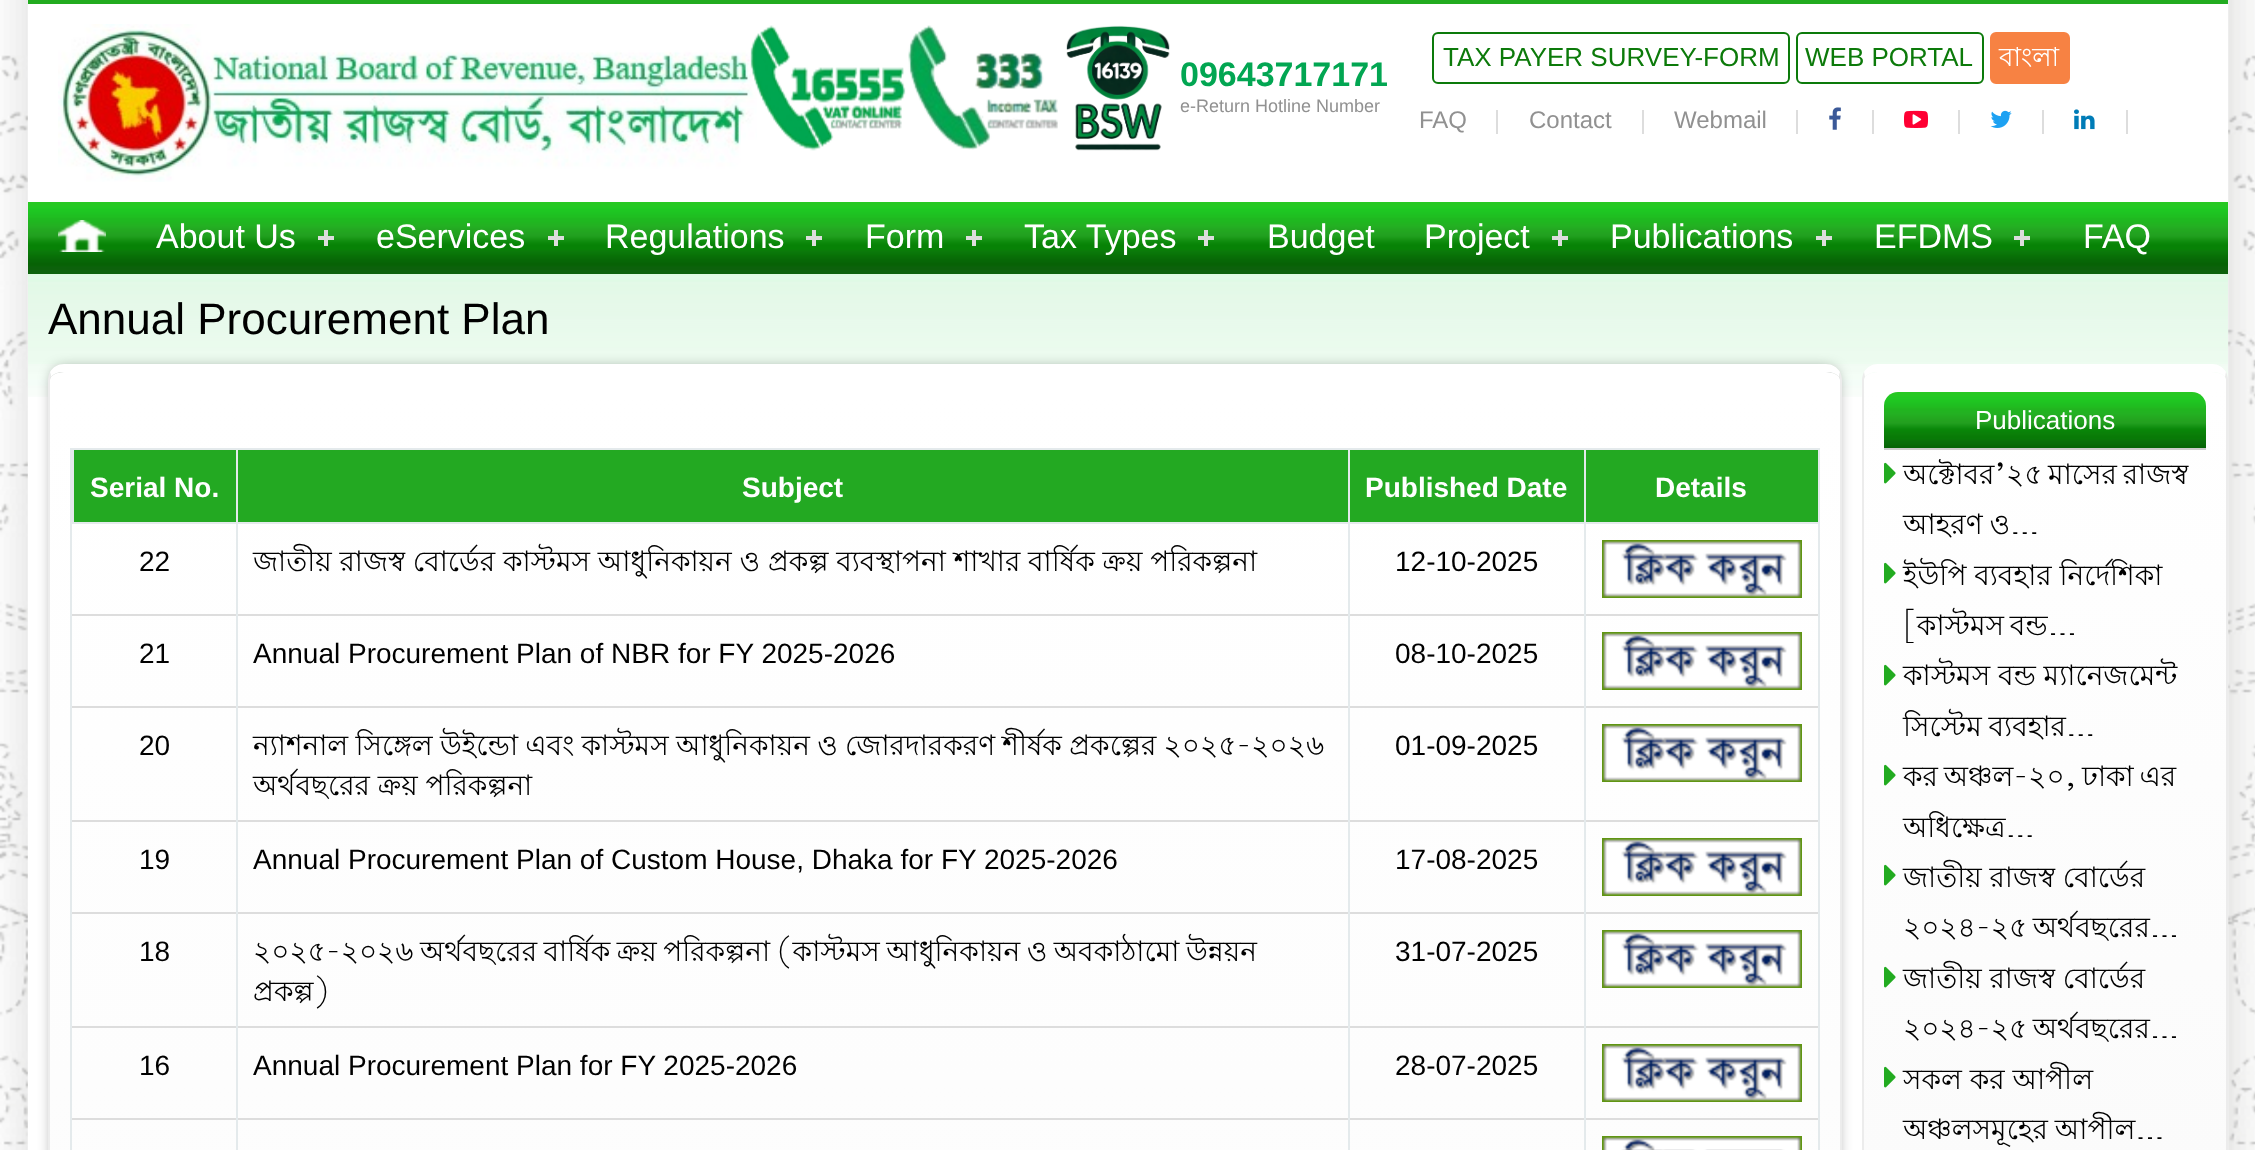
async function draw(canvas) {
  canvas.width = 2255
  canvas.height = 1150
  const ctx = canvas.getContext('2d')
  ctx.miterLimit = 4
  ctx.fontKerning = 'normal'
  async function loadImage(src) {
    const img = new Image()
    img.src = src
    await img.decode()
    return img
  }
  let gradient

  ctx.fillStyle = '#fff'
  ctx.fillRect(0, 0, 2255, 1150)
  ctx.drawImage(await loadImage('image0.png'), 0, 0, 2255, 1150)
  ctx.fillRect(28, 4, 2200, 1146)
  ctx.fillStyle = '#22ab20'
  ctx.fillRect(28, 0, 2200, 4)
  ctx.drawImage(await loadImage('image1.png'), 58, 24, 699, 158)
  ctx.drawImage(await loadImage('image2.png'), 750, 25, 156, 126)
  ctx.drawImage(await loadImage('image3.png'), 908, 25, 150, 125)
  ctx.drawImage(await loadImage('image4.png'), 1066, 25, 104, 126)
  ctx.font = 'bold 34px Liberation Sans'
  ctx.fillStyle = '#02a652'
  ctx.fillText('09643717171', 1180, 86)
  ctx.font = '18px Liberation Sans'
  ctx.fillStyle = '#919191'
  ctx.fillText('e-Return Hotline Number', 1180, 112)
  ctx.beginPath()
  ctx.roundRect(1433, 33, 356, 50, 5)
  ctx.strokeStyle = '#0c7a0a'
  ctx.lineWidth = 2
  ctx.stroke()
  ctx.font = '26px Liberation Sans'
  ctx.fillStyle = '#0c7a0a'
  ctx.fillText('TAX PAYER SURVEY-FORM', 1443, 66)
  ctx.beginPath()
  ctx.roundRect(1797, 33, 186, 50, 5)
  ctx.stroke()
  ctx.fillText('WEB PORTAL', 1805, 66)
  ctx.fillStyle = '#f78243'
  ctx.beginPath()
  ctx.roundRect(1991, 33, 78, 50, 5)
  ctx.fill()
  ctx.strokeStyle = '#f78243'
  ctx.stroke()
  ctx.font = '26px Lohit Bengali'
  ctx.fillStyle = '#fff'
  ctx.fillText('বাংলা', 1999, 66)
  ctx.fillStyle = '#ddd'
  ctx.fillRect(1496, 110, 2, 24)
  ctx.font = '24px Liberation Sans'
  ctx.fillStyle = '#919191'
  ctx.fillText('FAQ', 1419, 128)
  ctx.fillStyle = '#ddd'
  ctx.fillRect(1642, 110, 2, 24)
  ctx.fillStyle = '#919191'
  ctx.fillText('Contact', 1529, 128)
  ctx.fillStyle = '#ddd'
  ctx.fillRect(1796, 110, 2, 24)
  ctx.fillStyle = '#919191'
  ctx.fillText('Webmail', 1674, 128)
  ctx.fillStyle = '#ddd'
  ctx.fillRect(1872, 110, 2, 24)
  ctx.drawImage(await loadImage('image5.png'), 1829, 107, 12, 23)
  ctx.fillRect(1958, 110, 2, 24)
  ctx.drawImage(await loadImage('image6.png'), 1904, 110, 24, 18)
  ctx.fillRect(2042, 110, 2, 24)
  ctx.drawImage(await loadImage('image7.png'), 1990, 110, 22, 18)
  ctx.fillRect(2126, 110, 2, 24)
  ctx.drawImage(await loadImage('image8.png'), 2074, 109, 21, 21)
  ctx.drawImage(await loadImage('image9.png'), 28, 202, 2200, 72)
  ctx.drawImage(await loadImage('image10.png'), 58, 220, 48, 32)
  ctx.font = '34px Liberation Sans'
  ctx.fillStyle = '#fff'
  ctx.fillText('About Us', 156, 248)
  ctx.fillStyle = '#ddd'
  ctx.fillRect(324, 230, 4, 16)
  ctx.fillRect(318, 236, 16, 4)
  ctx.fillStyle = '#fff'
  ctx.fillText('eServices', 376, 248)
  ctx.fillStyle = '#ddd'
  ctx.fillRect(554, 230, 4, 16)
  ctx.fillRect(548, 236, 16, 4)
  ctx.fillStyle = '#fff'
  ctx.fillText('Regulations', 605, 248)
  ctx.fillStyle = '#ddd'
  ctx.fillRect(812, 230, 4, 16)
  ctx.fillRect(806, 236, 16, 4)
  ctx.fillStyle = '#fff'
  ctx.fillText('Form', 865, 248)
  ctx.fillStyle = '#ddd'
  ctx.fillRect(972, 230, 4, 16)
  ctx.fillRect(966, 236, 16, 4)
  ctx.fillStyle = '#fff'
  ctx.fillText('Tax Types', 1024, 248)
  ctx.fillStyle = '#ddd'
  ctx.fillRect(1204, 230, 4, 16)
  ctx.fillRect(1198, 236, 16, 4)
  ctx.fillStyle = '#fff'
  ctx.fillText('Budget', 1267, 248)
  ctx.fillText('Project', 1424, 248)
  ctx.fillStyle = '#ddd'
  ctx.fillRect(1558, 230, 4, 16)
  ctx.fillRect(1552, 236, 16, 4)
  ctx.fillStyle = '#fff'
  ctx.fillText('Publications', 1610, 248)
  ctx.fillStyle = '#ddd'
  ctx.fillRect(1822, 230, 4, 16)
  ctx.fillRect(1816, 236, 16, 4)
  ctx.fillStyle = '#fff'
  ctx.fillText('EFDMS', 1874, 248)
  ctx.fillStyle = '#ddd'
  ctx.fillRect(2020, 230, 4, 16)
  ctx.fillRect(2014, 236, 16, 4)
  ctx.fillStyle = '#fff'
  ctx.fillText('FAQ', 2083, 248)
  ctx.drawImage(await loadImage('image11.png'), 28, 274, 2200, 90)
  ctx.font = '44px Liberation Sans'
  ctx.fillStyle = '#000'
  ctx.fillText('Annual Procurement Plan', 48, 334)
  ctx.drawImage(await loadImage('image12.png'), 28, 364, 2200, 33)
  ctx.fillStyle = '#00000066'
  ctx.filter = 'blur(7px)'
  ctx.beginPath()
  ctx.roundRect(52, 368, 1786, 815, 12)
  ctx.fill()
  ctx.filter = 'none'
  gradient = ctx.createLinearGradient(945, 372, 945, 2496)
  gradient.addColorStop(0.01, '#fff')
  gradient.addColorStop(0.98, '#f9f9f9')
  ctx.fillStyle = gradient
  ctx.beginPath()
  ctx.moveTo(64, 372)
  ctx.lineTo(1826, 372)
  ctx.bezierCurveTo(1834, 372, 1840, 376, 1840, 380)
  ctx.lineTo(1840, 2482)
  ctx.bezierCurveTo(1840, 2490, 1834, 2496, 1826, 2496)
  ctx.lineTo(64, 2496)
  ctx.bezierCurveTo(56, 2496, 50, 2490, 50, 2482)
  ctx.lineTo(50, 380)
  ctx.bezierCurveTo(50, 376, 56, 372, 64, 372)
  ctx.closePath()
  ctx.fill()
  ctx.fillStyle = '#fff'
  ctx.beginPath()
  ctx.moveTo(64, 364)
  ctx.bezierCurveTo(58, 364, 53, 367, 50, 372)
  ctx.lineTo(51, 377)
  ctx.bezierCurveTo(53, 374, 58, 372, 64, 372)
  ctx.lineTo(1826, 372)
  ctx.bezierCurveTo(1832, 372, 1837, 374, 1839, 377)
  ctx.lineTo(1840, 372)
  ctx.bezierCurveTo(1837, 367, 1832, 364, 1826, 364)
  ctx.closePath()
  ctx.fill()
  ctx.fillStyle = '#ececec'
  ctx.beginPath()
  ctx.moveTo(1842, 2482)
  ctx.lineTo(1842, 380)
  ctx.bezierCurveTo(1842, 377, 1841, 374, 1840, 372)
  ctx.lineTo(1839, 377)
  ctx.bezierCurveTo(1840, 378, 1840, 379, 1840, 380)
  ctx.lineTo(1840, 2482)
  ctx.bezierCurveTo(1840, 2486, 1838, 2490, 1836, 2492)
  ctx.lineTo(1837, 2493)
  ctx.bezierCurveTo(1840, 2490, 1842, 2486, 1842, 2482)
  ctx.closePath()
  ctx.fill()
  ctx.beginPath()
  ctx.moveTo(48, 380)
  ctx.lineTo(48, 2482)
  ctx.bezierCurveTo(48, 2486, 50, 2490, 53, 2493)
  ctx.lineTo(54, 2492)
  ctx.bezierCurveTo(52, 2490, 50, 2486, 50, 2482)
  ctx.lineTo(50, 380)
  ctx.bezierCurveTo(50, 379, 50, 378, 51, 377)
  ctx.lineTo(50, 372)
  ctx.bezierCurveTo(49, 374, 48, 377, 48, 380)
  ctx.closePath()
  ctx.fill()
  ctx.strokeStyle = '#e4eaec'
  ctx.strokeRect(71, 449, 1748, 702)
  ctx.fillStyle = '#23a922'
  ctx.fillRect(74, 450, 162, 72)
  ctx.fillStyle = '#ddd'
  ctx.fillRect(1584, 614, 234, 2)
  ctx.fillRect(1584, 706, 234, 2)
  ctx.fillRect(1584, 820, 234, 2)
  ctx.fillRect(1584, 912, 234, 2)
  ctx.fillRect(1584, 1026, 234, 2)
  ctx.fillRect(1584, 1118, 234, 2)
  ctx.fillStyle = '#e4eaec'
  ctx.fillRect(1584, 1118, 2, 32)
  ctx.fillStyle = '#ddd'
  ctx.fillRect(1348, 1118, 238, 2)
  ctx.fillStyle = '#e4eaec'
  ctx.fillRect(1584, 1026, 2, 94)
  ctx.fillStyle = '#ddd'
  ctx.fillRect(1348, 1026, 238, 2)
  ctx.fillStyle = '#e4eaec'
  ctx.fillRect(1584, 912, 2, 116)
  ctx.fillStyle = '#ddd'
  ctx.fillRect(1348, 912, 238, 2)
  ctx.fillStyle = '#e4eaec'
  ctx.fillRect(1584, 820, 2, 94)
  ctx.fillStyle = '#ddd'
  ctx.fillRect(1348, 820, 238, 2)
  ctx.fillStyle = '#e4eaec'
  ctx.fillRect(1584, 706, 2, 116)
  ctx.fillStyle = '#ddd'
  ctx.fillRect(1348, 706, 238, 2)
  ctx.fillStyle = '#e4eaec'
  ctx.fillRect(1584, 614, 2, 94)
  ctx.fillStyle = '#ddd'
  ctx.fillRect(1348, 614, 238, 2)
  ctx.fillStyle = '#e4eaec'
  ctx.fillRect(1584, 522, 2, 94)
  ctx.fillRect(1584, 522, 234, 2)
  ctx.fillRect(1584, 450, 2, 74)
  ctx.fillRect(1348, 1118, 2, 32)
  ctx.fillStyle = '#ddd'
  ctx.fillRect(236, 1118, 1114, 2)
  ctx.fillStyle = '#e4eaec'
  ctx.fillRect(1348, 1026, 2, 94)
  ctx.fillStyle = '#ddd'
  ctx.fillRect(236, 1026, 1114, 2)
  ctx.fillStyle = '#e4eaec'
  ctx.fillRect(1348, 912, 2, 116)
  ctx.fillStyle = '#ddd'
  ctx.fillRect(236, 912, 1114, 2)
  ctx.fillStyle = '#e4eaec'
  ctx.fillRect(1348, 820, 2, 94)
  ctx.fillStyle = '#ddd'
  ctx.fillRect(236, 820, 1114, 2)
  ctx.fillStyle = '#e4eaec'
  ctx.fillRect(1348, 706, 2, 116)
  ctx.fillStyle = '#ddd'
  ctx.fillRect(236, 706, 1114, 2)
  ctx.fillStyle = '#e4eaec'
  ctx.fillRect(1348, 614, 2, 94)
  ctx.fillStyle = '#ddd'
  ctx.fillRect(236, 614, 1114, 2)
  ctx.fillStyle = '#e4eaec'
  ctx.fillRect(1348, 522, 2, 94)
  ctx.fillRect(1348, 522, 238, 2)
  ctx.fillRect(1348, 450, 2, 74)
  ctx.fillRect(236, 1118, 2, 32)
  ctx.fillStyle = '#ddd'
  ctx.fillRect(72, 1118, 166, 2)
  ctx.fillStyle = '#e4eaec'
  ctx.fillRect(236, 1026, 2, 94)
  ctx.fillStyle = '#ddd'
  ctx.fillRect(72, 1026, 166, 2)
  ctx.fillStyle = '#e4eaec'
  ctx.fillRect(236, 912, 2, 116)
  ctx.fillStyle = '#ddd'
  ctx.fillRect(72, 912, 166, 2)
  ctx.fillStyle = '#e4eaec'
  ctx.fillRect(236, 820, 2, 94)
  ctx.fillStyle = '#ddd'
  ctx.fillRect(72, 820, 166, 2)
  ctx.fillStyle = '#e4eaec'
  ctx.fillRect(236, 706, 2, 116)
  ctx.fillStyle = '#ddd'
  ctx.fillRect(72, 706, 166, 2)
  ctx.fillStyle = '#e4eaec'
  ctx.fillRect(236, 614, 2, 94)
  ctx.fillStyle = '#ddd'
  ctx.fillRect(72, 614, 166, 2)
  ctx.fillStyle = '#e4eaec'
  ctx.fillRect(236, 522, 2, 94)
  ctx.fillRect(236, 522, 1114, 2)
  ctx.fillRect(236, 450, 2, 74)
  ctx.fillRect(72, 522, 166, 2)
  ctx.fillRect(72, 450, 2, 74)
  ctx.font = 'bold 28px Liberation Sans'
  ctx.fillStyle = '#fff'
  ctx.fillText('Serial No.', 90, 497)
  ctx.fillStyle = '#23a922'
  ctx.fillRect(238, 450, 1110, 72)
  ctx.fillStyle = '#fff'
  ctx.fillText('Subject', 742, 497)
  ctx.fillStyle = '#23a922'
  ctx.fillRect(1350, 450, 234, 72)
  ctx.fillStyle = '#fff'
  ctx.fillText('Published Date', 1365, 497)
  ctx.fillStyle = '#23a922'
  ctx.fillRect(1586, 450, 232, 72)
  ctx.fillStyle = '#fff'
  ctx.fillText('Details', 1655, 497)
  ctx.font = '28px Liberation Sans'
  ctx.fillStyle = '#000'
  ctx.fillText('22', 139, 571)
  ctx.font = '28px Lohit Bengali'
  ctx.fillText('জাতীয় রাজস্ব বো‌র্ডের কাস্টমস আধু‌নিকায়ন ও প্রকল্প ব‌্যবস্থাপনা শাখার বা‌র্ষিক ক্রয় পরিকল্পনা', 253, 571)
  ctx.font = '28px Liberation Sans'
  ctx.fillText('12-10-2025', 1395, 571)
  ctx.drawImage(await loadImage('image13.png'), 1602, 540, 200, 58)
  ctx.fillText('21', 139, 663)
  ctx.fillText('Annual Procurement Plan of NBR for FY 2025-2026', 253, 663)
  ctx.fillText('08-10-2025', 1395, 663)
  ctx.drawImage(await loadImage('image13.png'), 1602, 632, 200, 58)
  ctx.fillText('20', 139, 755)
  ctx.wordSpacing = '-0.5px'
  ctx.font = '28px Lohit Bengali'
  ctx.fillText('ন্যাশনাল সিঙ্গেল উইন্ডো এবং কাস্টমস আধুনিকায়ন ও জোরদারকরণ শীর্ষক প্রকল্পের ২০২৫-২০২৬', 253, 755)
  ctx.wordSpacing = '0px'
  ctx.fillText('অর্থবছরের ক্রয় পরিকল্পনা', 253, 795)
  ctx.font = '28px Liberation Sans'
  ctx.fillText('01-09-2025', 1395, 755)
  ctx.drawImage(await loadImage('image13.png'), 1602, 724, 200, 58)
  ctx.fillText('19', 139, 869)
  ctx.fillText('Annual Procurement Plan of Custom House, Dhaka for FY 2025-2026', 253, 869)
  ctx.fillText('17-08-2025', 1395, 869)
  ctx.drawImage(await loadImage('image13.png'), 1602, 838, 200, 58)
  ctx.fillText('18', 139, 961)
  ctx.wordSpacing = '-1.25px'
  ctx.font = '28px Lohit Bengali'
  ctx.fillText('২০২৫-২০২৬ অর্থবছরের বার্ষিক ক্রয় পরিকল্পনা (কাস্টমস আধুনিকায়ন ও অবকাঠামো উন্নয়ন', 253, 961)
  ctx.wordSpacing = '0px'
  ctx.fillText('প্রকল্প)', 253, 1001)
  ctx.font = '28px Liberation Sans'
  ctx.fillText('31-07-2025', 1395, 961)
  ctx.drawImage(await loadImage('image13.png'), 1602, 930, 200, 58)
  ctx.fillText('16', 139, 1075)
  ctx.fillText('Annual Procurement Plan for FY 2025-2026', 253, 1075)
  ctx.fillText('28-07-2025', 1395, 1075)
  ctx.drawImage(await loadImage('image13.png'), 1602, 1044, 200, 58)
  ctx.drawImage(await loadImage('image14.png'), 1602, 1136, 200, 14)
  gradient = ctx.createLinearGradient(2045, 372, 2045, 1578)
  gradient.addColorStop(0.01, '#fff')
  gradient.addColorStop(0.98, '#f9f9f9')
  ctx.fillStyle = gradient
  ctx.beginPath()
  ctx.moveTo(1878, 372)
  ctx.lineTo(2212, 372)
  ctx.bezierCurveTo(2220, 372, 2226, 376, 2226, 380)
  ctx.lineTo(2226, 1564)
  ctx.bezierCurveTo(2226, 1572, 2220, 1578, 2212, 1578)
  ctx.lineTo(1878, 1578)
  ctx.bezierCurveTo(1870, 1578, 1864, 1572, 1864, 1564)
  ctx.lineTo(1864, 380)
  ctx.bezierCurveTo(1864, 376, 1870, 372, 1878, 372)
  ctx.closePath()
  ctx.fill()
  ctx.fillStyle = '#fff'
  ctx.beginPath()
  ctx.moveTo(1878, 364)
  ctx.bezierCurveTo(1872, 364, 1867, 367, 1864, 372)
  ctx.lineTo(1865, 377)
  ctx.bezierCurveTo(1867, 374, 1872, 372, 1878, 372)
  ctx.lineTo(2212, 372)
  ctx.bezierCurveTo(2218, 372, 2223, 374, 2225, 377)
  ctx.lineTo(2226, 372)
  ctx.bezierCurveTo(2223, 367, 2218, 364, 2212, 364)
  ctx.closePath()
  ctx.fill()
  ctx.fillStyle = '#ececec'
  ctx.beginPath()
  ctx.moveTo(2228, 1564)
  ctx.lineTo(2228, 380)
  ctx.bezierCurveTo(2228, 377, 2227, 374, 2226, 372)
  ctx.lineTo(2225, 377)
  ctx.bezierCurveTo(2226, 378, 2226, 379, 2226, 380)
  ctx.lineTo(2226, 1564)
  ctx.bezierCurveTo(2226, 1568, 2224, 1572, 2222, 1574)
  ctx.lineTo(2223, 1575)
  ctx.bezierCurveTo(2226, 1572, 2228, 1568, 2228, 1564)
  ctx.closePath()
  ctx.fill()
  ctx.beginPath()
  ctx.moveTo(1862, 380)
  ctx.lineTo(1862, 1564)
  ctx.bezierCurveTo(1862, 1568, 1864, 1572, 1867, 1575)
  ctx.lineTo(1868, 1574)
  ctx.bezierCurveTo(1866, 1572, 1864, 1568, 1864, 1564)
  ctx.lineTo(1864, 380)
  ctx.bezierCurveTo(1864, 379, 1864, 378, 1865, 377)
  ctx.lineTo(1864, 372)
  ctx.bezierCurveTo(1863, 374, 1862, 377, 1862, 380)
  ctx.closePath()
  ctx.fill()
  ctx.drawImage(await loadImage('image15.png'), 1884, 392, 322, 56)
  ctx.fillStyle = '#ccc'
  ctx.fillRect(1884, 448, 322, 2)
  ctx.font = '26px Liberation Sans'
  ctx.fillStyle = '#fff'
  ctx.fillText('Publications', 1975, 429)
  ctx.drawImage(await loadImage('image16.png'), 1884, 462, 12, 22)
  ctx.wordSpacing = '-2px'
  ctx.font = '28px Lohit Bengali'
  ctx.fillStyle = '#000'
  ctx.fillText('অক্টোবর’২৫ মাসের রাজস্ব', 1903, 484)
  ctx.wordSpacing = '-1px'
  ctx.fillText('আহরণ ও…', 1903, 534)
  ctx.drawImage(await loadImage('image17.png'), 1884, 562, 12, 22)
  ctx.wordSpacing = '0px'
  ctx.fillText('ইউপি ব্যবহার নির্দেশিকা', 1903, 585)
  ctx.wordSpacing = '-2px'
  ctx.fillText('[কাস্টমস বন্ড…', 1903, 635)
  ctx.drawImage(await loadImage('image18.png'), 1884, 664, 12, 22)
  ctx.wordSpacing = '0px'
  ctx.fillText('কাস্টমস বন্ড ম্যানেজমেন্ট', 1903, 685)
  ctx.wordSpacing = '-1px'
  ctx.fillText('সিস্টেম ব্যবহার…', 1903, 736)
  ctx.drawImage(await loadImage('image19.png'), 1884, 764, 12, 22)
  ctx.wordSpacing = '-2px'
  ctx.fillText('কর অঞ্চল-২০, ঢাকা এর', 1903, 786)
  ctx.wordSpacing = '0px'
  ctx.fillText('অধিক্ষেত্র…', 1903, 837)
  ctx.drawImage(await loadImage('image20.png'), 1884, 864, 12, 22)
  ctx.fillText('জাতীয় রাজস্ব বোর্ডের', 1903, 887)
  ctx.wordSpacing = '-2px'
  ctx.fillText('২০২৪-২৫ অর্থবছরের…', 1903, 937)
  ctx.drawImage(await loadImage('image21.png'), 1884, 966, 12, 22)
  ctx.wordSpacing = '0px'
  ctx.fillText('জাতীয় রাজস্ব বোর্ডের', 1903, 988)
  ctx.wordSpacing = '-2px'
  ctx.fillText('২০২৪-২৫ অর্থবছরের…', 1903, 1038)
  ctx.drawImage(await loadImage('image22.png'), 1884, 1066, 12, 22)
  ctx.wordSpacing = '0px'
  ctx.fillText('সকল কর আপীল', 1903, 1089)
  ctx.wordSpacing = '-1px'
  ctx.fillText('অঞ্চলসমূহের আপীল…', 1903, 1139)
}

draw(document.querySelector('canvas'))
